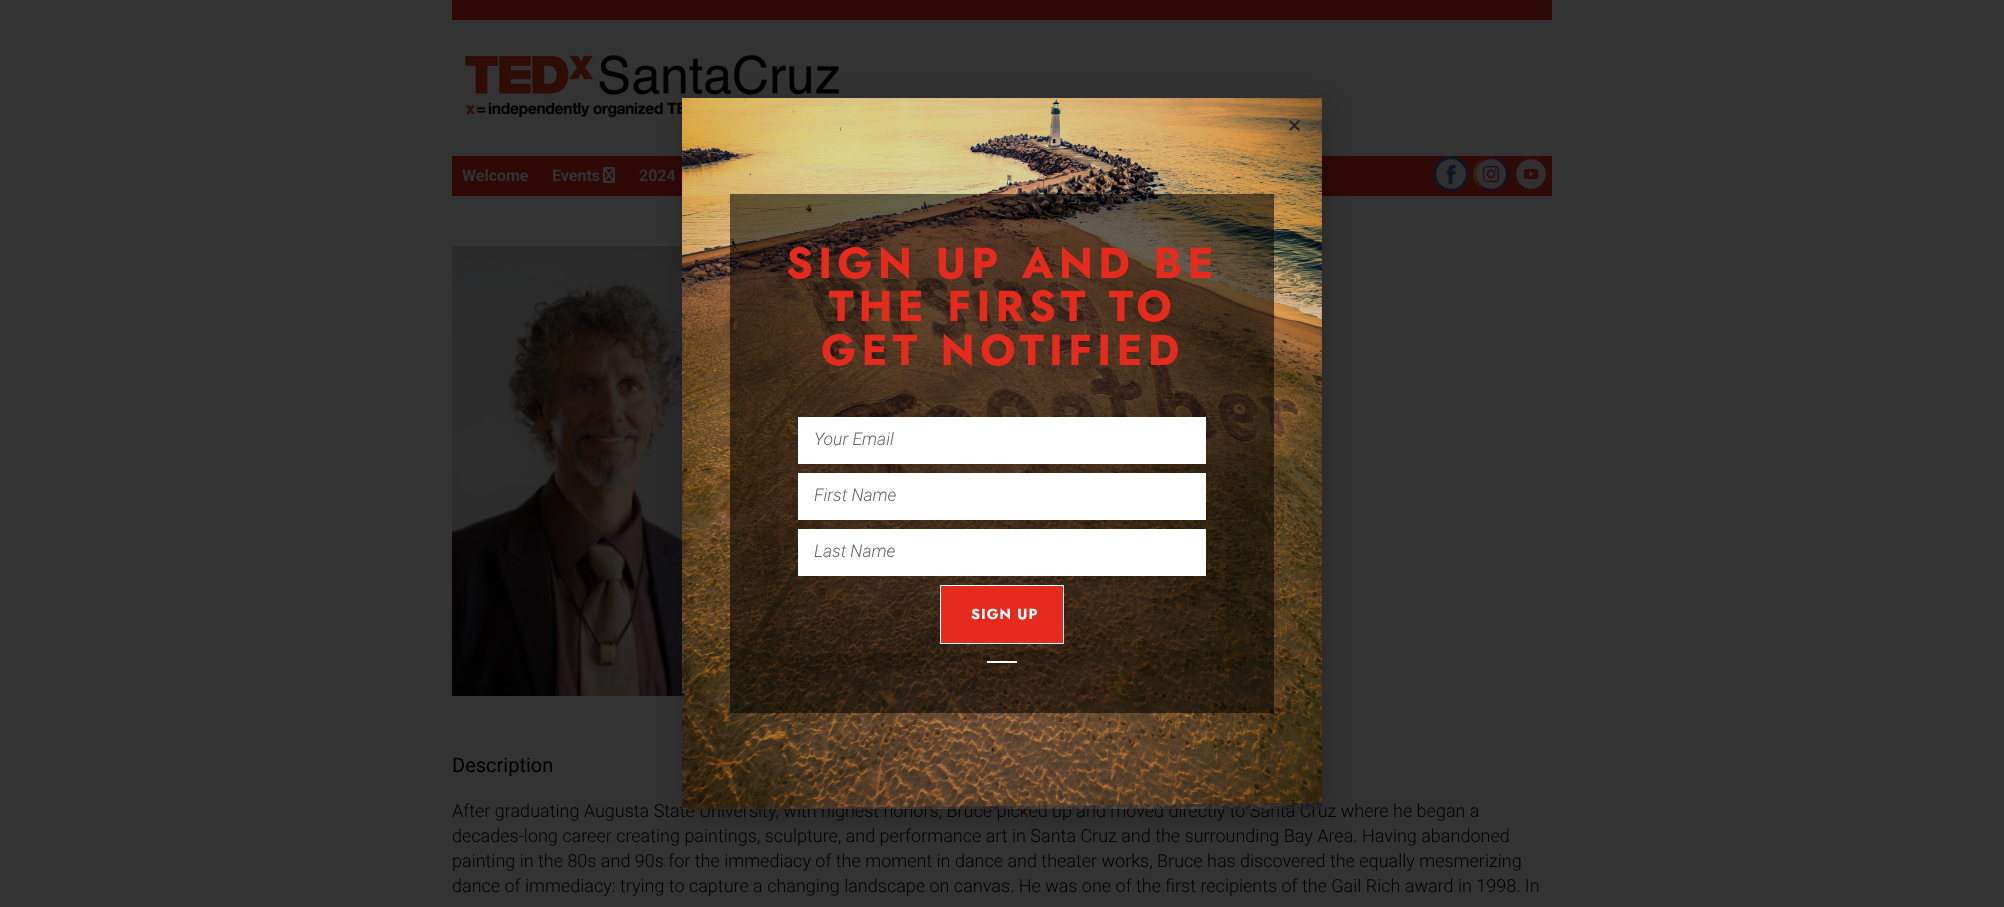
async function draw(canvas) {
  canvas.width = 2004
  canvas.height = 907
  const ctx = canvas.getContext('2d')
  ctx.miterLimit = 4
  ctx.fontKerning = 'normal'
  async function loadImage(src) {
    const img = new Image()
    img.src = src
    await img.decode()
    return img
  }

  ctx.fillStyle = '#333'
  ctx.fillRect(0, 0, 2004, 907)
  ctx.fillStyle = '#2e0906'
  ctx.fillRect(452, 0, 1100, 20)
  ctx.drawImage(await loadImage('image0.png'), 465, 55, 375, 63)
  ctx.fillRect(452, 156, 1100, 40)
  ctx.font = 'bold 16px Roboto'
  ctx.fillStyle = '#333'
  ctx.fillText('Welcome', 462, 181)
  ctx.fillText('Events', 552, 181)
  ctx.drawImage(await loadImage('image1.png'), 603, 167, 12, 16)
  ctx.fillText('2024', 639, 181)
  ctx.drawImage(await loadImage('image2.png'), 1433, 156, 36, 36)
  ctx.drawImage(await loadImage('image3.png'), 1473, 156, 36, 36)
  ctx.drawImage(await loadImage('image4.png'), 1513, 156, 36, 36)
  ctx.drawImage(await loadImage('image5.png'), 452, 246, 230, 450)
  ctx.font = '20px Roboto'
  ctx.fillStyle = '#000'
  ctx.fillText('Description', 452, 772)
  ctx.font = '300 18px Roboto'
  ctx.fillText('After graduating Augusta State University, with highest honors, Bruce picked up and moved directly to Santa Cruz where he began a', 452, 817)
  ctx.fillText('decades-long career creating paintings, sculpture, and performance art in Santa Cruz and the surrounding Bay Area. Having abandoned', 452, 842)
  ctx.fillText('painting in the 80s and 90s for the immediacy of the moment in dance and theater works, Bruce has discovered the equally mesmerizing', 452, 867)
  ctx.fillText('dance of immediacy: trying to capture a changing landscape on canvas. He was one of the first recipients of the Gail Rich award in 1998. In', 452, 892)
  ctx.fillStyle = '#00000033'
  ctx.filter = 'blur(11.5px)'
  ctx.beginPath()
  ctx.rect(681, 103, 646, 717)
  ctx.fill()
  ctx.filter = 'none'
  ctx.drawImage(await loadImage('image7.png'), 682, 98, 640, 711)
  ctx.fillStyle = '#13131324'
  ctx.fillRect(682, 98, 640, 711)
  ctx.drawImage(await loadImage('image6.png'), 1289, 120, 11, 11)
  ctx.fillStyle = '#0000008c'
  ctx.fillRect(730, 194, 544, 519)
  ctx.letterSpacing = '5.25px'
  ctx.font = 'bold 43.25px Jost'
  ctx.fillStyle = '#e62b1e'
  ctx.fillText('SIGN UP AND BE', 786, 278)
  ctx.fillText('THE FIRST TO', 829, 321)
  ctx.fillText('GET NOTIFIED', 821, 365)
  ctx.save()
  ctx.beginPath()
  ctx.moveTo(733, 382)
  ctx.lineTo(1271, 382)
  ctx.lineTo(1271, 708)
  ctx.lineTo(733, 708)
  ctx.closePath()
  ctx.moveTo(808, 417)
  ctx.lineTo(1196, 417)
  ctx.bezierCurveTo(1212.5, 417, 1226, 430.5, 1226, 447)
  ctx.lineTo(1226, 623)
  ctx.bezierCurveTo(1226, 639.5, 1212.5, 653, 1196, 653)
  ctx.lineTo(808, 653)
  ctx.bezierCurveTo(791.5, 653, 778, 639.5, 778, 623)
  ctx.lineTo(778, 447)
  ctx.bezierCurveTo(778, 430.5, 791.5, 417, 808, 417)
  ctx.closePath()
  ctx.clip('evenodd')
  ctx.fillStyle = '#0000002e'
  ctx.filter = 'blur(14.5px)'
  ctx.beginPath()
  ctx.roundRect(778, 427, 448, 236, 30)
  ctx.fill()
  ctx.filter = 'none'
  ctx.restore()
  ctx.fillStyle = '#fff'
  ctx.fillRect(798, 417, 408, 47)
  ctx.letterSpacing = '0px'
  ctx.font = 'italic 300 17.5px Roboto'
  ctx.fillStyle = '#666'
  ctx.fillText('Your Email', 814, 445)
  ctx.fillStyle = '#fff'
  ctx.fillRect(798, 473, 408, 47)
  ctx.fillStyle = '#666'
  ctx.fillText('First Name', 814, 501)
  ctx.fillStyle = '#fff'
  ctx.fillRect(798, 529, 408, 47)
  ctx.fillStyle = '#666'
  ctx.fillText('Last Name', 814, 557)
  ctx.fillStyle = '#e62b1e'
  ctx.beginPath()
  ctx.rect(940.5, 585.5, 123, 58)
  ctx.fill()
  ctx.strokeStyle = '#fff'
  ctx.stroke()
  ctx.letterSpacing = '1px'
  ctx.font = 'bold 14.5px Jost'
  ctx.fillStyle = '#fff'
  ctx.fillText('SIGN UP', 971, 619)
  ctx.fillRect(987, 661, 30, 2)
}

draw(document.querySelector('canvas'))
